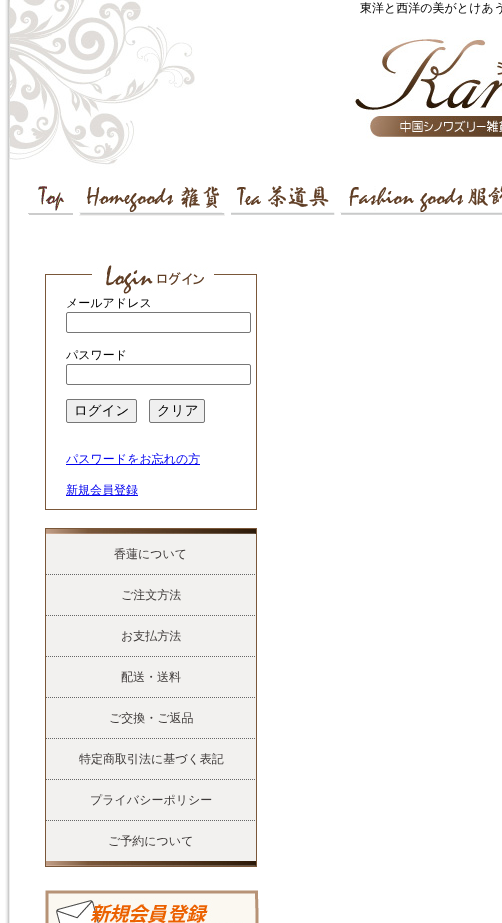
async function draw(canvas) {
  canvas.width = 502
  canvas.height = 923
  const ctx = canvas.getContext('2d')
  ctx.miterLimit = 4
  ctx.fontKerning = 'normal'
  async function loadImage(src) {
    const img = new Image()
    img.src = src
    await img.decode()
    return img
  }

  ctx.fillStyle = '#fff'
  ctx.fillRect(0, 0, 502, 923)
  ctx.drawImage(await loadImage('image0.png'), 5, 0, 190, 168)
  ctx.font = '500 12px WenQuanYi Zen Hei'
  ctx.fillStyle = '#000'
  ctx.fillText('東洋と西洋の美がとけあう', 360, 12)
  ctx.drawImage(await loadImage('image1.png'), 352, 37, 150, 102)
  ctx.drawImage(await loadImage('image2.png'), 5, 168, 5, 50)
  ctx.drawImage(await loadImage('image3.png'), 28, 186, 45, 29)
  ctx.drawImage(await loadImage('image4.png'), 79, 186, 146, 30)
  ctx.drawImage(await loadImage('image5.png'), 231, 185, 104, 30)
  ctx.drawImage(await loadImage('image6.png'), 340, 186, 162, 29)
  ctx.drawImage(await loadImage('image7.png'), 5, 218, 5, 705)
  ctx.drawImage(await loadImage('image8.png'), 45, 265, 212, 30)
  ctx.fillStyle = '#7a5739'
  ctx.fillRect(256, 295, 1, 215)
  ctx.fillRect(45, 509, 212, 1)
  ctx.fillRect(45, 295, 1, 215)
  ctx.fillStyle = '#000'
  ctx.fillText('メールアドレス', 66, 307)
  ctx.beginPath()
  ctx.roundRect(66.5, 312.5, 184, 20, 1.5)
  ctx.strokeStyle = '#767676'
  ctx.stroke()
  ctx.fillText('パスワード', 66, 359)
  ctx.beginPath()
  ctx.roundRect(66.5, 364.5, 184, 20, 1.5)
  ctx.stroke()
  ctx.fillStyle = '#efefef'
  ctx.beginPath()
  ctx.roundRect(66.5, 399.5, 70, 23, 1.5)
  ctx.fill()
  ctx.stroke()
  ctx.font = '500 13.5px WenQuanYi Zen Hei'
  ctx.fillStyle = '#000'
  ctx.fillText('ログイン', 74, 415)
  ctx.fillStyle = '#efefef'
  ctx.beginPath()
  ctx.roundRect(149.5, 399.5, 55, 23, 1.5)
  ctx.fill()
  ctx.stroke()
  ctx.fillStyle = '#000'
  ctx.fillText('クリア', 157, 415)
  ctx.fillStyle = '#00e'
  ctx.fillRect(66, 464, 134, 1)
  ctx.font = '500 12px WenQuanYi Zen Hei'
  ctx.fillText('パスワードをお忘れの方', 66, 463)
  ctx.fillRect(66, 495, 72, 1)
  ctx.fillText('新規会員登録', 66, 494)
  ctx.fillStyle = '#f2f1ef'
  ctx.fillRect(46, 534, 210, 327)
  ctx.strokeStyle = '#7a5739'
  ctx.strokeRect(45.5, 528.5, 211, 338)
  ctx.drawImage(await loadImage('image9.png'), 46, 529, 210, 5)
  ctx.beginPath()
  ctx.moveTo(46, 574.5)
  ctx.lineTo(256, 574.5)
  ctx.strokeStyle = '#666'
  ctx.setLineDash([1, 1])
  ctx.stroke()
  ctx.fillStyle = '#3e3a39'
  ctx.fillText('香蓮について', 114, 558)
  ctx.beginPath()
  ctx.moveTo(46, 615.5)
  ctx.lineTo(256, 615.5)
  ctx.stroke()
  ctx.fillText('ご注文方法', 121, 599)
  ctx.beginPath()
  ctx.moveTo(46, 656.5)
  ctx.lineTo(256, 656.5)
  ctx.stroke()
  ctx.fillText('お支払方法', 121, 640)
  ctx.beginPath()
  ctx.moveTo(46, 697.5)
  ctx.lineTo(256, 697.5)
  ctx.stroke()
  ctx.fillText('配送・送料', 121, 681)
  ctx.beginPath()
  ctx.moveTo(46, 738.5)
  ctx.lineTo(256, 738.5)
  ctx.stroke()
  ctx.fillText('ご交換・ご返品', 109, 722)
  ctx.beginPath()
  ctx.moveTo(46, 779.5)
  ctx.lineTo(256, 779.5)
  ctx.stroke()
  ctx.fillText('特定商取引法に基づく表記', 79, 763)
  ctx.beginPath()
  ctx.moveTo(46, 820.5)
  ctx.lineTo(256, 820.5)
  ctx.stroke()
  ctx.fillText('プライバシーポリシー', 90, 804)
  ctx.fillText('ご予約について', 108, 845)
  ctx.drawImage(await loadImage('image9.png'), 46, 861, 210, 5)
  ctx.drawImage(await loadImage('image10.png'), 45, 890, 214, 33)
}

draw(document.querySelector('canvas'))
